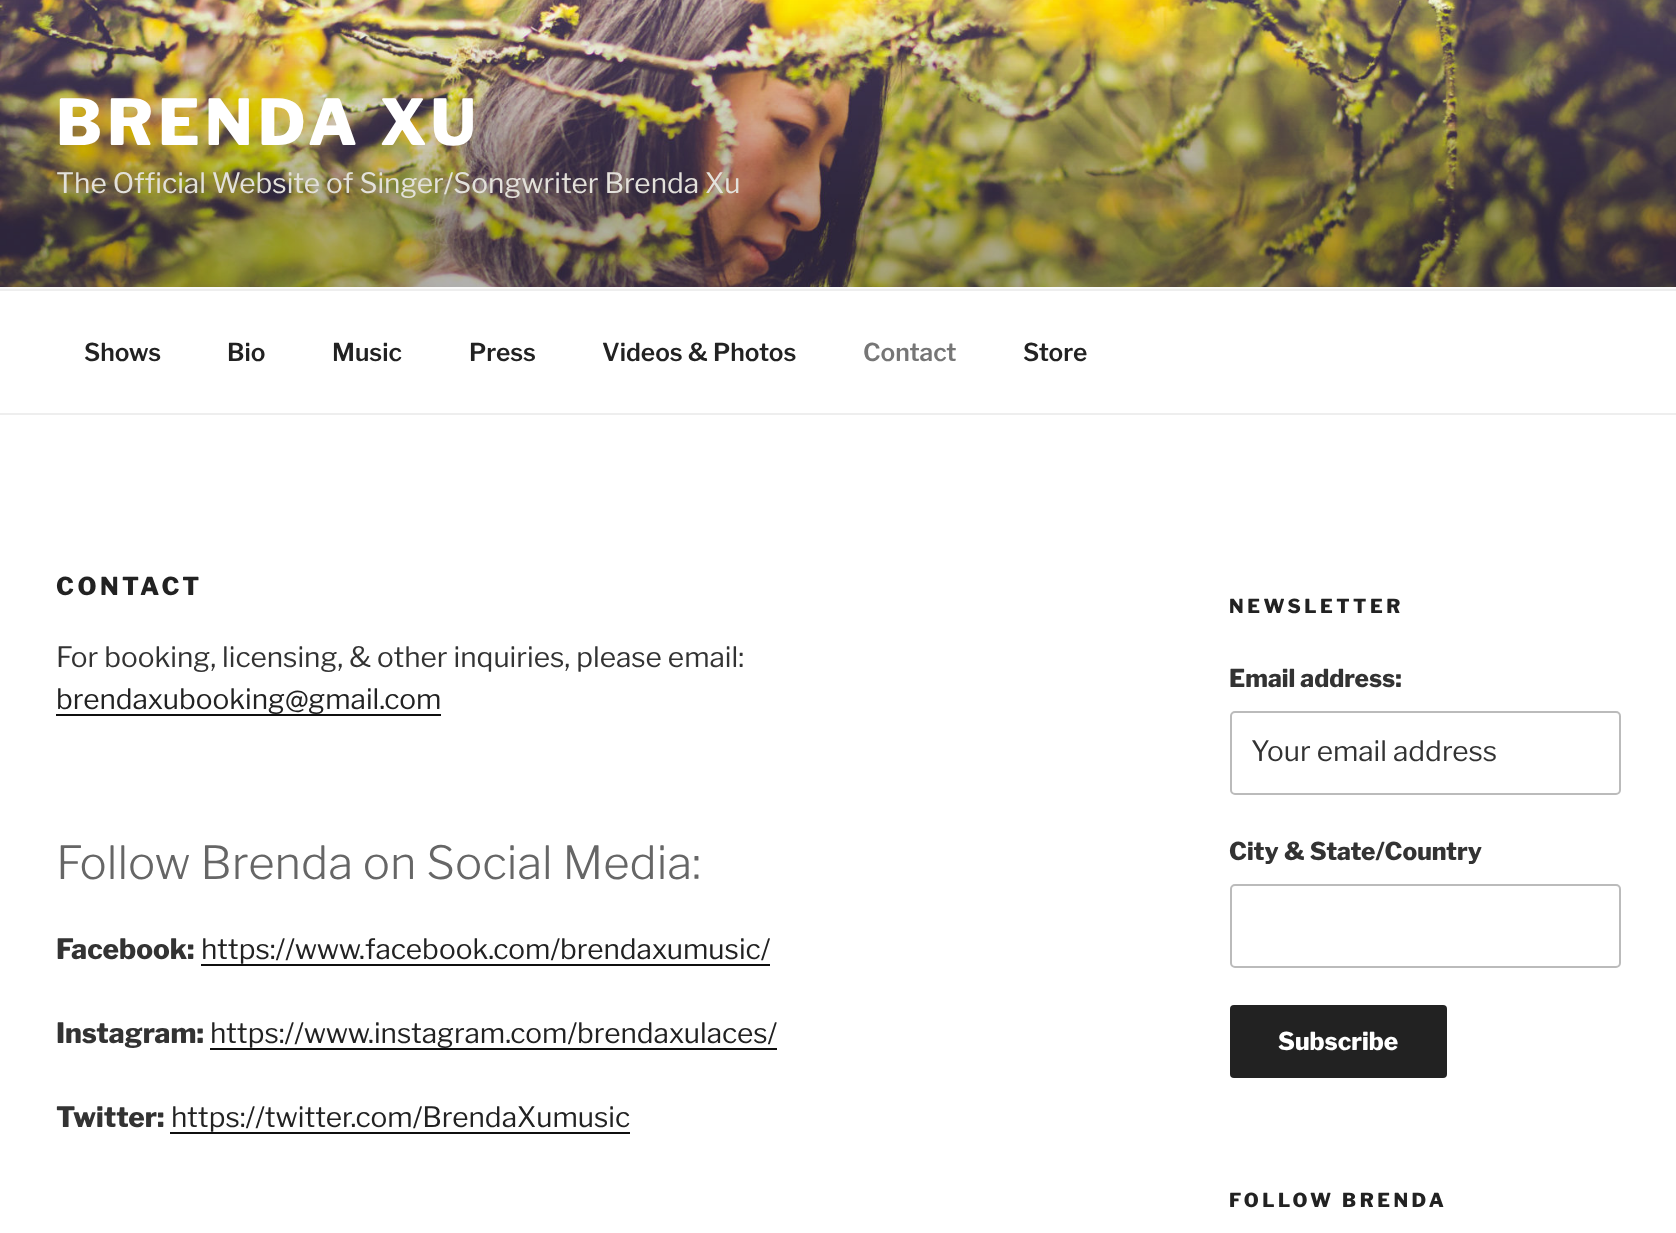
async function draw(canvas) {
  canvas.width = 1676
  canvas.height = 1233
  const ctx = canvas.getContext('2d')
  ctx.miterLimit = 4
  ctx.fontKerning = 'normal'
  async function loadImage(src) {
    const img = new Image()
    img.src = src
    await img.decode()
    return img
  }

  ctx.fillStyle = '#fff'
  ctx.fillRect(0, 0, 1676, 1233)
  ctx.fillStyle = '#fafafa'
  ctx.fillRect(0, 287, 1676, 2)
  ctx.drawImage(await loadImage('image0.png'), 0, 0, 1676, 287)
  ctx.letterSpacing = '5px'
  ctx.font = '800 63px Libre Franklin'
  ctx.fillStyle = '#fff'
  ctx.fillText('BRENDA XU', 56, 145)
  ctx.letterSpacing = '0px'
  ctx.font = '28px Libre Franklin'
  ctx.fillStyle = '#e3e1db'
  ctx.fillText('The Official Website of Singer/Songwriter Brenda Xu', 56, 193)
  ctx.fillStyle = '#eee'
  ctx.fillRect(0, 289, 1676, 2)
  ctx.fillRect(0, 413, 1676, 2)
  ctx.font = '600 24.5px Libre Franklin'
  ctx.fillStyle = '#222'
  ctx.fillText('Shows', 84, 361)
  ctx.fillText('Bio', 227, 361)
  ctx.fillText('Music', 332, 361)
  ctx.fillText('Press', 469, 361)
  ctx.fillText('Videos & Photos', 602, 361)
  ctx.fillStyle = '#767676'
  ctx.fillText('Contact', 863, 361)
  ctx.fillStyle = '#222'
  ctx.fillText('Store', 1023, 361)
  ctx.letterSpacing = '3.5px'
  ctx.font = '800 24.5px Libre Franklin'
  ctx.fillText('CONTACT', 56, 595)
  ctx.letterSpacing = '0px'
  ctx.font = '28px Libre Franklin'
  ctx.fillStyle = '#333'
  ctx.fillText('For booking, licensing, & other inquiries, please email:', 56, 667)
  ctx.fillStyle = '#222'
  ctx.fillText('brendaxubooking@gmail.com', 56, 709)
  ctx.fillStyle = '#0f0f0f'
  ctx.fillRect(56, 714, 385, 2)
  ctx.font = '300 45.5px Libre Franklin'
  ctx.fillStyle = '#666'
  ctx.fillText('Follow Brenda on Social Media:', 56, 879)
  ctx.font = '800 28px Libre Franklin'
  ctx.fillStyle = '#333'
  ctx.fillText('Facebook:', 56, 959)
  ctx.font = '28px Libre Franklin'
  ctx.fillStyle = '#222'
  ctx.fillText('https://www.facebook.com/brendaxumusic/', 201, 959)
  ctx.fillStyle = '#0f0f0f'
  ctx.fillRect(201, 964, 569, 2)
  ctx.font = '800 28px Libre Franklin'
  ctx.fillStyle = '#333'
  ctx.fillText('Instagram:', 56, 1043)
  ctx.font = '28px Libre Franklin'
  ctx.fillStyle = '#222'
  ctx.fillText('https://www.instagram.com/brendaxulaces/', 210, 1043)
  ctx.fillStyle = '#0f0f0f'
  ctx.fillRect(210, 1048, 567, 2)
  ctx.font = '800 28px Libre Franklin'
  ctx.fillStyle = '#333'
  ctx.fillText('Twitter:', 56, 1127)
  ctx.font = '28px Libre Franklin'
  ctx.fillStyle = '#222'
  ctx.fillText('https://twitter.com/BrendaXumusic', 171, 1127)
  ctx.fillStyle = '#0f0f0f'
  ctx.fillRect(170, 1132, 460, 2)
  ctx.letterSpacing = '3.5px'
  ctx.font = '800 19.25px Libre Franklin'
  ctx.fillStyle = '#222'
  ctx.fillText('NEWSLETTER', 1229, 613)
  ctx.letterSpacing = '0px'
  ctx.font = '800 24.5px Libre Franklin'
  ctx.fillStyle = '#333'
  ctx.fillText('Email address:', 1229, 687)
  ctx.beginPath()
  ctx.roundRect(1231, 712, 389, 82, 4)
  ctx.strokeStyle = '#bbb'
  ctx.lineWidth = 2
  ctx.stroke()
  ctx.font = '28px Libre Franklin'
  ctx.fillText('Your email address', 1251, 761)
  ctx.font = '800 24.5px Libre Franklin'
  ctx.fillText('City & State/Country', 1229, 860)
  ctx.beginPath()
  ctx.roundRect(1231, 885, 389, 82, 4)
  ctx.stroke()
  ctx.fillStyle = '#222'
  ctx.beginPath()
  ctx.roundRect(1230, 1005, 217, 73, 4)
  ctx.fill()
  ctx.fillStyle = '#fff'
  ctx.fillText('Subscribe', 1278, 1050)
  ctx.letterSpacing = '3.5px'
  ctx.font = '800 19.25px Libre Franklin'
  ctx.fillStyle = '#222'
  ctx.fillText('FOLLOW BRENDA', 1229, 1207)
}

draw(document.querySelector('canvas'))
